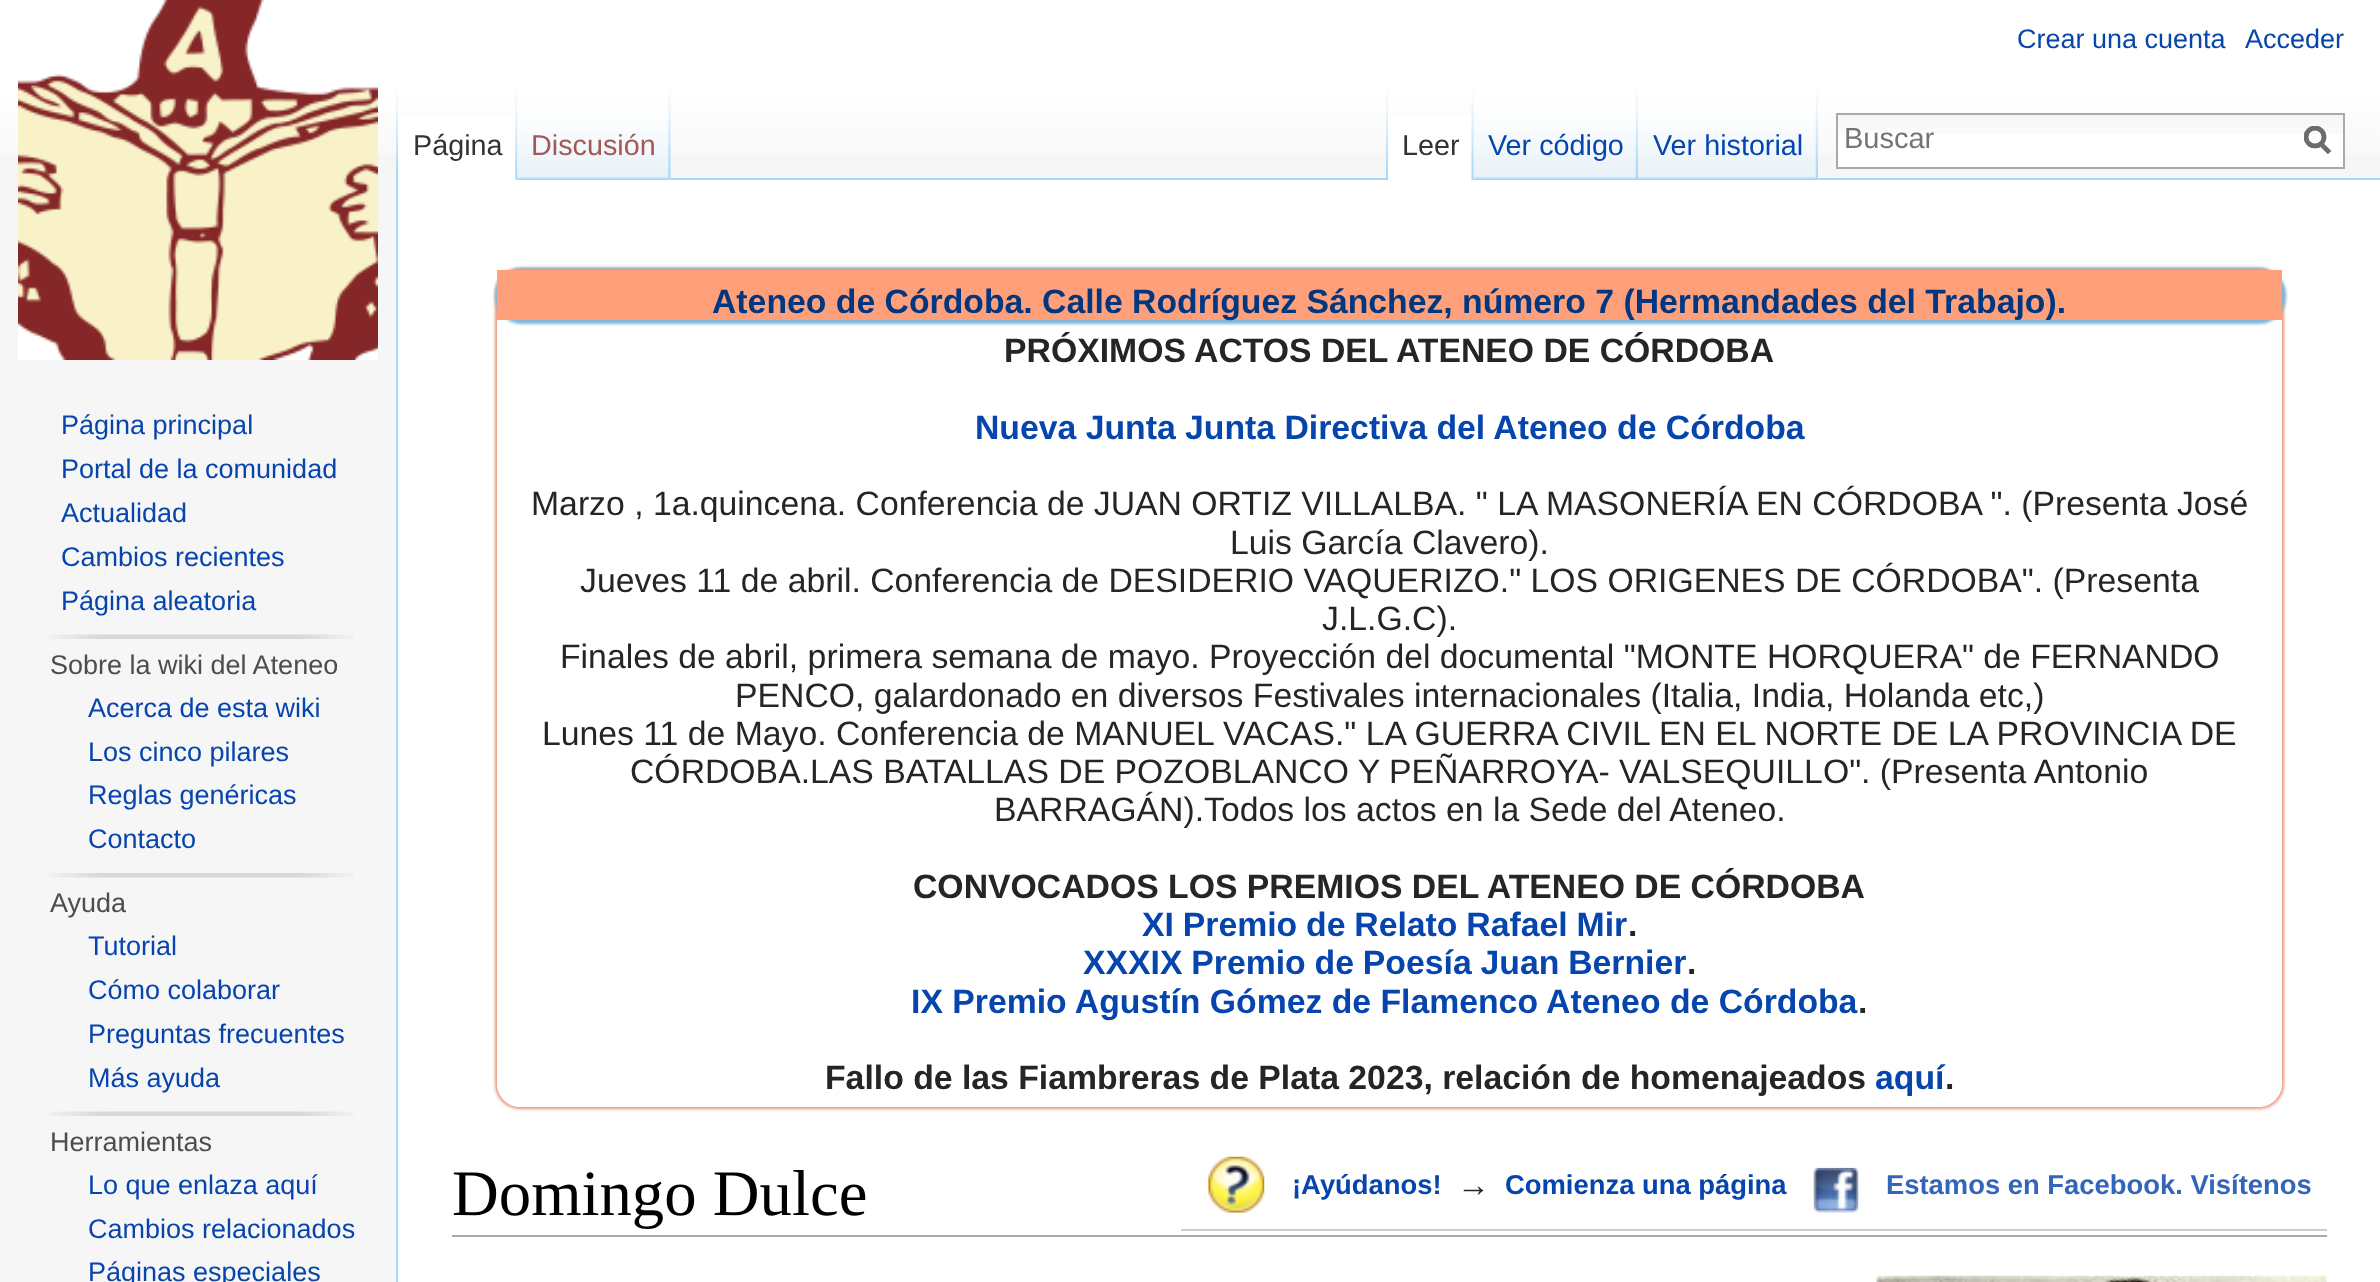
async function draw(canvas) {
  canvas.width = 2380
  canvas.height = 1282
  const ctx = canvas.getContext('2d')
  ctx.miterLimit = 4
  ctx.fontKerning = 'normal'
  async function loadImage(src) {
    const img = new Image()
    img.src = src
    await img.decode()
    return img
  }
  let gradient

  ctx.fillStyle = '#f6f6f6'
  ctx.fillRect(0, 0, 2380, 1282)
  gradient = ctx.createLinearGradient(1190, 0, 1190, 180)
  gradient.addColorStop(0.5, '#fff')
  gradient.addColorStop(1, '#f6f6f6')
  ctx.fillStyle = gradient
  ctx.fillRect(0, 0, 2380, 155)
  ctx.font = '27px Liberation Sans'
  ctx.fillStyle = '#0645ad'
  ctx.fillText('Crear una cuenta', 2017, 48)
  ctx.fillText('Acceder', 2245, 48)
  ctx.drawImage(await loadImage('image0.png'), 396, 90, 2, 88)
  ctx.fillStyle = '#fff'
  ctx.fillRect(398, 115, 120, 65)
  ctx.drawImage(await loadImage('image1.png'), 515, 91, 3, 89)
  ctx.font = '28.75px Liberation Sans'
  ctx.fillStyle = '#333'
  ctx.fillText('Página', 413, 155)
  ctx.fillStyle = '#f3f3f3'
  ctx.fillRect(670, 90, 1, 90)
  ctx.drawImage(await loadImage('image2.png'), 517, 90, 154, 90)
  ctx.drawImage(await loadImage('image3.png'), 668, 91, 3, 89)
  ctx.fillStyle = '#a55858'
  ctx.fillText('Discusión', 531, 155)
  ctx.drawImage(await loadImage('image0.png'), 1386, 90, 2, 88)
  ctx.fillStyle = '#a7d7f9'
  ctx.fillRect(671, 178, 1709, 2)
  ctx.fillStyle = '#fff'
  ctx.fillRect(1388, 115, 86, 65)
  ctx.drawImage(await loadImage('image4.png'), 1471, 91, 3, 89)
  ctx.fillStyle = '#333'
  ctx.fillText('Leer', 1402, 155)
  ctx.drawImage(await loadImage('image5.png'), 1473, 90, 165, 90)
  ctx.drawImage(await loadImage('image6.png'), 1635, 91, 3, 88)
  ctx.fillStyle = '#0645ad'
  ctx.fillText('Ver código', 1488, 155)
  ctx.drawImage(await loadImage('image7.png'), 1638, 90, 180, 90)
  ctx.drawImage(await loadImage('image6.png'), 1815, 91, 3, 88)
  ctx.fillText('Ver historial', 1653, 155)
  ctx.fillStyle = '#fff'
  ctx.fillRect(1838, 134, 505, 33)
  ctx.drawImage(await loadImage('image8.png'), 1838, 115, 505, 19)
  ctx.strokeStyle = '#aaa'
  ctx.lineWidth = 2
  ctx.strokeRect(1837, 114, 507, 54)
  ctx.beginPath()
  ctx.moveTo(2329.5, 152.5)
  ctx.lineTo(2320.5, 143.5)
  ctx.strokeStyle = '#6c6c6c'
  ctx.lineWidth = 4.5
  ctx.stroke()
  ctx.save()
  ctx.beginPath()
  ctx.rect(2304, 126, 27, 29)
  ctx.clip()
  ctx.beginPath()
  ctx.arc(2315, 137, 9, 0, 2 * Math.PI)
  ctx.stroke()
  ctx.restore()
  ctx.font = '29px Liberation Sans'
  ctx.fillStyle = '#757575'
  ctx.fillText('Buscar', 1844, 148)
  ctx.beginPath()
  ctx.moveTo(2329.5, 152.5)
  ctx.lineTo(2320.5, 143.5)
  ctx.stroke()
  ctx.save()
  ctx.beginPath()
  ctx.rect(2304, 126, 27, 29)
  ctx.clip()
  ctx.beginPath()
  ctx.arc(2315, 137, 9, 0, 2 * Math.PI)
  ctx.stroke()
  ctx.restore()
  ctx.drawImage(await loadImage('image9.png'), 18, 0, 360, 360)
  ctx.font = '27px Liberation Sans'
  ctx.fillStyle = '#0645ad'
  ctx.fillText('Página principal', 61, 434)
  ctx.fillText('Portal de la comunidad', 61, 478)
  ctx.fillText('Actualidad', 61, 522)
  ctx.fillText('Cambios recientes', 61, 566)
  ctx.fillText('Página aleatoria', 61, 610)
  ctx.drawImage(await loadImage('image10.png'), 49, 634, 305, 5)
  ctx.fillStyle = '#4d4d4d'
  ctx.fillText('Sobre la wiki del Ateneo', 50, 674)
  ctx.fillStyle = '#0645ad'
  ctx.fillText('Acerca de esta wiki', 88, 717)
  ctx.fillText('Los cinco pilares', 88, 761)
  ctx.fillText('Reglas genéricas', 88, 804)
  ctx.fillText('Contacto', 88, 848)
  ctx.drawImage(await loadImage('image11.png'), 49, 873, 305, 5)
  ctx.fillStyle = '#4d4d4d'
  ctx.fillText('Ayuda', 50, 912)
  ctx.fillStyle = '#0645ad'
  ctx.fillText('Tutorial', 88, 955)
  ctx.fillText('Cómo colaborar', 88, 999)
  ctx.fillText('Preguntas frecuentes', 88, 1043)
  ctx.fillText('Más ayuda', 88, 1087)
  ctx.drawImage(await loadImage('image10.png'), 49, 1111, 305, 5)
  ctx.fillStyle = '#4d4d4d'
  ctx.fillText('Herramientas', 50, 1151)
  ctx.fillStyle = '#0645ad'
  ctx.fillText('Lo que enlaza aquí', 88, 1194)
  ctx.fillText('Cambios relacionados', 88, 1238)
  ctx.fillText('Páginas especiales', 88, 1281)
  ctx.fillStyle = '#fff'
  ctx.fillRect(398, 180, 1982, 1102)
  ctx.fillStyle = '#a7d7f9'
  ctx.fillRect(396, 178, 2, 1104)
  ctx.save()
  ctx.beginPath()
  ctx.moveTo(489, 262)
  ctx.lineTo(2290, 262)
  ctx.lineTo(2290, 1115)
  ctx.lineTo(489, 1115)
  ctx.closePath()
  ctx.moveTo(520, 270)
  ctx.lineTo(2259, 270)
  ctx.bezierCurveTo(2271.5, 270, 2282, 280.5, 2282, 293)
  ctx.lineTo(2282, 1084)
  ctx.bezierCurveTo(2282, 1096.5, 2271.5, 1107, 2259, 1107)
  ctx.lineTo(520, 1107)
  ctx.bezierCurveTo(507.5, 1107, 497, 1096.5, 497, 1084)
  ctx.lineTo(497, 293)
  ctx.bezierCurveTo(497, 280.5, 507.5, 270, 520, 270)
  ctx.closePath()
  ctx.clip('evenodd')
  ctx.fillStyle = '#e9967a'
  ctx.filter = 'blur(1.5px)'
  ctx.beginPath()
  ctx.roundRect(495, 268, 1789, 841, 25)
  ctx.fill()
  ctx.filter = 'none'
  ctx.restore()
  ctx.fillStyle = '#7fb5d7'
  ctx.filter = 'blur(1.5px)'
  ctx.beginPath()
  ctx.roundRect(495, 268, 1791, 56, 27)
  ctx.fill()
  ctx.filter = 'none'
  ctx.fillStyle = '#ffa07a'
  ctx.fillRect(497, 270, 1785, 50)
  ctx.font = 'bold 33.75px Liberation Sans'
  ctx.fillStyle = '#003780'
  ctx.fillText('Ateneo de Córdoba. Calle Rodríguez Sánchez, número 7 (Hermandades del Trabajo).', 712, 313)
  ctx.fillStyle = '#252525'
  ctx.fillText('PRÓXIMOS ACTOS DEL ATENEO DE CÓRDOBA', 1004, 362)
  ctx.fillStyle = '#0645ad'
  ctx.fillText('Nueva Junta Junta Directiva del Ateneo de Córdoba', 975, 439)
  ctx.font = '33.75px Liberation Sans'
  ctx.fillStyle = '#252525'
  ctx.fillText('Marzo , 1a.quincena. Conferencia de JUAN ORTIZ VILLALBA. " LA MASONERÍA EN CÓRDOBA ". (Presenta José', 531, 515)
  ctx.fillText('Luis García Clavero).', 1230, 554)
  ctx.fillText('Jueves 11 de abril. Conferencia de DESIDERIO VAQUERIZO." LOS ORIGENES DE CÓRDOBA". (Presenta', 580, 592)
  ctx.fillText('J.L.G.C).', 1322, 630)
  ctx.fillText('Finales de abril, primera semana de mayo. Proyección del documental "MONTE HORQUERA" de FERNANDO', 560, 668)
  ctx.fillText('PENCO, galardonado en diversos Festivales internacionales (Italia, India, Holanda etc,)', 735, 707)
  ctx.fillText('Lunes 11 de Mayo. Conferencia de MANUEL VACAS." LA GUERRA CIVIL EN EL NORTE DE LA PROVINCIA DE', 542, 745)
  ctx.fillText('CÓRDOBA.LAS BATALLAS DE POZOBLANCO Y PEÑARROYA- VALSEQUILLO". (Presenta Antonio', 630, 783)
  ctx.fillText('BARRAGÁN).Todos los actos en la Sede del Ateneo.', 994, 821)
  ctx.font = 'bold 33.75px Liberation Sans'
  ctx.fillText('CONVOCADOS LOS PREMIOS DEL ATENEO DE CÓRDOBA', 913, 898)
  ctx.wordSpacing = '-0.5px'
  ctx.fillStyle = '#0645ad'
  ctx.fillText('XI Premio de Relato Rafael Mir', 1142, 936)
  ctx.wordSpacing = '0px'
  ctx.fillStyle = '#252525'
  ctx.fillText('.', 1628, 936)
  ctx.wordSpacing = '-0.5px'
  ctx.fillStyle = '#0645ad'
  ctx.fillText('XXXIX Premio de Poesía Juan Bernier', 1083, 974)
  ctx.wordSpacing = '0px'
  ctx.fillStyle = '#252525'
  ctx.fillText('.', 1687, 974)
  ctx.fillStyle = '#0645ad'
  ctx.fillText('IX Premio Agustín Gómez de Flamenco Ateneo de Córdoba', 911, 1013)
  ctx.fillStyle = '#252525'
  ctx.fillText('.', 1858, 1013)
  ctx.fillText('Fallo de las Fiambreras de Plata 2023, relación de homenajeados', 825, 1089)
  ctx.fillStyle = '#0645ad'
  ctx.fillText('aquí', 1875, 1089)
  ctx.fillStyle = '#252525'
  ctx.fillText('.', 1945, 1089)
  ctx.fillStyle = '#ccc'
  ctx.fillRect(1181, 1229, 1146, 2)
  ctx.drawImage(await loadImage('image12.png'), 1208, 1156, 57, 57)
  ctx.font = 'bold 27.4px Liberation Sans'
  ctx.fillStyle = '#0645ad'
  ctx.fillText('¡Ayúdanos!', 1292, 1194)
  ctx.font = 'bold 33px Liberation Sans'
  ctx.fillStyle = '#252525'
  ctx.fillText('→', 1457, 1196)
  ctx.font = 'bold 27.4px Liberation Sans'
  ctx.fillStyle = '#0645ad'
  ctx.fillText('Comienza una página', 1505, 1194)
  ctx.drawImage(await loadImage('image13.png'), 1813, 1167, 46, 46)
  ctx.fillStyle = '#36b'
  ctx.fillText('Estamos en Facebook. Visítenos', 1886, 1194)
  ctx.fillStyle = '#aaa'
  ctx.fillRect(452, 1235, 1875, 2)
  ctx.font = '64.75px Liberation Serif'
  ctx.fillStyle = '#000'
  ctx.fillText('Domingo Dulce', 452, 1215)
  ctx.drawImage(await loadImage('image14.png'), 1876, 1275, 451, 7)
}

draw(document.querySelector('canvas'))
